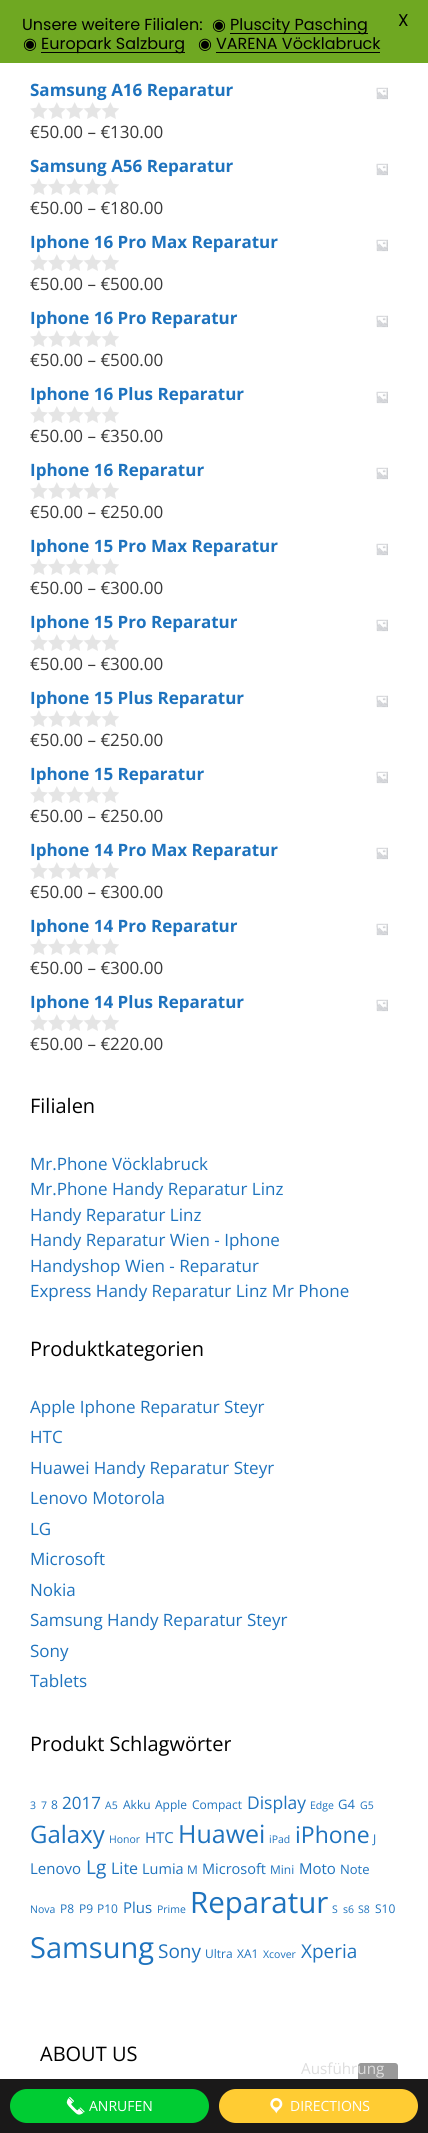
import math
import cairo



def rounded_rect(context, x, y, w, h, r):
    context.new_sub_path()
    for i, (u, v) in enumerate([(x + w - r, y + h - r), (x + r, y + h - r), (x + r, y + r), (x + w - r, y + r)]):
        context.arc(u, v, r, i * math.pi / 2, (i + 1) * math.pi / 2)
    context.close_path()


def draw_image(context, path, x, y, w, h):
    context.save()
    context.set_source_surface(cairo.ImageSurface.create_from_png(path), x, y)
    context.rectangle(x, y, w, h)
    context.fill()
    context.restore()


def draw(context):
    context.set_source_rgb(1, 1, 1)
    context.paint()
    context.set_source_rgb(111 / 255, 168 / 255, 34 / 255)
    context.rectangle(0, 0, 428, 63)
    context.fill()
    context.set_source_rgb(0, 0, 0)
    context.rectangle(230, 33, 138, 1)
    context.fill()
    context.rectangle(41, 52, 144, 1)
    context.fill()
    context.rectangle(216, 52, 164, 1)
    context.fill()
    draw_image(context, "images/1.png", 376, 87, 12, 13)
    draw_image(context, "images/2.png", 30, 102, 89, 17)
    draw_image(context, "images/1.png", 376, 163, 12, 13)
    draw_image(context, "images/2.png", 30, 178, 89, 17)
    draw_image(context, "images/1.png", 376, 239, 12, 13)
    draw_image(context, "images/2.png", 30, 254, 89, 17)
    draw_image(context, "images/1.png", 376, 315, 12, 13)
    draw_image(context, "images/2.png", 30, 330, 89, 17)
    draw_image(context, "images/1.png", 376, 391, 12, 13)
    draw_image(context, "images/2.png", 30, 406, 89, 17)
    draw_image(context, "images/1.png", 376, 467, 12, 13)
    draw_image(context, "images/2.png", 30, 482, 89, 17)
    draw_image(context, "images/1.png", 376, 543, 12, 13)
    draw_image(context, "images/2.png", 30, 558, 89, 17)
    draw_image(context, "images/1.png", 376, 619, 12, 13)
    draw_image(context, "images/2.png", 30, 634, 89, 17)
    draw_image(context, "images/1.png", 376, 695, 12, 13)
    draw_image(context, "images/2.png", 30, 710, 89, 17)
    draw_image(context, "images/1.png", 376, 771, 12, 13)
    draw_image(context, "images/2.png", 30, 786, 89, 17)
    draw_image(context, "images/1.png", 376, 847, 12, 13)
    draw_image(context, "images/2.png", 30, 862, 89, 17)
    draw_image(context, "images/1.png", 376, 923, 12, 13)
    draw_image(context, "images/2.png", 30, 938, 89, 17)
    draw_image(context, "images/1.png", 376, 999, 12, 13)
    draw_image(context, "images/2.png", 30, 1014, 89, 17)
    context.set_source_rgb(153 / 255, 153 / 255, 153 / 255)
    rounded_rect(context, 358, 2063, 40, 40, 3)
    context.fill()
    context.set_source_rgb(26 / 255, 25 / 255, 25 / 255)
    context.rectangle(0, 2079, 428, 54)
    context.fill()
    context.set_source_rgb(0, 204 / 255, 51 / 255)
    rounded_rect(context, 10, 2089, 199, 34, 17)
    context.fill()
    draw_image(context, "images/3.png", 66, 2096, 19, 19)
    context.set_source_rgb(1, 204 / 255, 51 / 255)
    rounded_rect(context, 219, 2089, 199, 34, 17)
    context.fill()
    draw_image(context, "images/4.png", 270, 2098, 13, 16)
    context.select_font_face("Poppins")
    context.set_font_size(16)
    context.set_source_rgb(0, 0, 0)
    context.move_to(22, 30)
    context.show_text("Unsere weitere Filialen:")
    context.select_font_face("DejaVu Sans")
    context.move_to(212, 30)
    context.show_text("◉")
    context.select_font_face("Poppins")
    context.move_to(230, 30)
    context.show_text("Pluscity Pasching")
    context.select_font_face("DejaVu Sans")
    context.move_to(23, 49)
    context.show_text("◉")
    context.select_font_face("Poppins")
    context.move_to(41, 49)
    context.show_text("Europark Salzburg")
    context.select_font_face("DejaVu Sans")
    context.move_to(198, 49)
    context.show_text("◉")
    context.select_font_face("Poppins")
    context.move_to(216, 49)
    context.show_text("VARENA Vöcklabruck")
    context.set_font_size(17)
    context.move_to(398, 26)
    context.show_text("X")
    context.select_font_face("Open Sans", cairo.FontSlant.NORMAL, cairo.FontWeight.BOLD)
    context.set_source_rgb(30 / 255, 115 / 255, 190 / 255)
    context.move_to(30, 96)
    context.show_text("Samsung A16 Reparatur")
    context.select_font_face("Open Sans")
    context.set_source_rgb(58 / 255, 58 / 255, 58 / 255)
    context.move_to(30, 138)
    context.show_text("€50.00 – €130.00")
    context.select_font_face("Open Sans", cairo.FontSlant.NORMAL, cairo.FontWeight.BOLD)
    context.set_source_rgb(30 / 255, 115 / 255, 190 / 255)
    context.move_to(30, 172)
    context.show_text("Samsung A56 Reparatur")
    context.select_font_face("Open Sans")
    context.set_source_rgb(58 / 255, 58 / 255, 58 / 255)
    context.move_to(30, 214)
    context.show_text("€50.00 – €180.00")
    context.select_font_face("Open Sans", cairo.FontSlant.NORMAL, cairo.FontWeight.BOLD)
    context.set_source_rgb(30 / 255, 115 / 255, 190 / 255)
    context.move_to(30, 248)
    context.show_text("Iphone 16 Pro Max Reparatur")
    context.select_font_face("Open Sans")
    context.set_source_rgb(58 / 255, 58 / 255, 58 / 255)
    context.move_to(30, 290)
    context.show_text("€50.00 – €500.00")
    context.select_font_face("Open Sans", cairo.FontSlant.NORMAL, cairo.FontWeight.BOLD)
    context.set_source_rgb(30 / 255, 115 / 255, 190 / 255)
    context.move_to(30, 324)
    context.show_text("Iphone 16 Pro Reparatur")
    context.select_font_face("Open Sans")
    context.set_source_rgb(58 / 255, 58 / 255, 58 / 255)
    context.move_to(30, 366)
    context.show_text("€50.00 – €500.00")
    context.select_font_face("Open Sans", cairo.FontSlant.NORMAL, cairo.FontWeight.BOLD)
    context.set_source_rgb(30 / 255, 115 / 255, 190 / 255)
    context.move_to(30, 400)
    context.show_text("Iphone 16 Plus Reparatur")
    context.select_font_face("Open Sans")
    context.set_source_rgb(58 / 255, 58 / 255, 58 / 255)
    context.move_to(30, 442)
    context.show_text("€50.00 – €350.00")
    context.select_font_face("Open Sans", cairo.FontSlant.NORMAL, cairo.FontWeight.BOLD)
    context.set_source_rgb(30 / 255, 115 / 255, 190 / 255)
    context.move_to(30, 476)
    context.show_text("Iphone 16 Reparatur")
    context.select_font_face("Open Sans")
    context.set_source_rgb(58 / 255, 58 / 255, 58 / 255)
    context.move_to(30, 518)
    context.show_text("€50.00 – €250.00")
    context.select_font_face("Open Sans", cairo.FontSlant.NORMAL, cairo.FontWeight.BOLD)
    context.set_source_rgb(30 / 255, 115 / 255, 190 / 255)
    context.move_to(30, 552)
    context.show_text("Iphone 15 Pro Max Reparatur")
    context.select_font_face("Open Sans")
    context.set_source_rgb(58 / 255, 58 / 255, 58 / 255)
    context.move_to(30, 594)
    context.show_text("€50.00 – €300.00")
    context.select_font_face("Open Sans", cairo.FontSlant.NORMAL, cairo.FontWeight.BOLD)
    context.set_source_rgb(30 / 255, 115 / 255, 190 / 255)
    context.move_to(30, 628)
    context.show_text("Iphone 15 Pro Reparatur")
    context.select_font_face("Open Sans")
    context.set_source_rgb(58 / 255, 58 / 255, 58 / 255)
    context.move_to(30, 670)
    context.show_text("€50.00 – €300.00")
    context.select_font_face("Open Sans", cairo.FontSlant.NORMAL, cairo.FontWeight.BOLD)
    context.set_source_rgb(30 / 255, 115 / 255, 190 / 255)
    context.move_to(30, 704)
    context.show_text("Iphone 15 Plus Reparatur")
    context.select_font_face("Open Sans")
    context.set_source_rgb(58 / 255, 58 / 255, 58 / 255)
    context.move_to(30, 746)
    context.show_text("€50.00 – €250.00")
    context.select_font_face("Open Sans", cairo.FontSlant.NORMAL, cairo.FontWeight.BOLD)
    context.set_source_rgb(30 / 255, 115 / 255, 190 / 255)
    context.move_to(30, 780)
    context.show_text("Iphone 15 Reparatur")
    context.select_font_face("Open Sans")
    context.set_source_rgb(58 / 255, 58 / 255, 58 / 255)
    context.move_to(30, 822)
    context.show_text("€50.00 – €250.00")
    context.select_font_face("Open Sans", cairo.FontSlant.NORMAL, cairo.FontWeight.BOLD)
    context.set_source_rgb(30 / 255, 115 / 255, 190 / 255)
    context.move_to(30, 856)
    context.show_text("Iphone 14 Pro Max Reparatur")
    context.select_font_face("Open Sans")
    context.set_source_rgb(58 / 255, 58 / 255, 58 / 255)
    context.move_to(30, 898)
    context.show_text("€50.00 – €300.00")
    context.select_font_face("Open Sans", cairo.FontSlant.NORMAL, cairo.FontWeight.BOLD)
    context.set_source_rgb(30 / 255, 115 / 255, 190 / 255)
    context.move_to(30, 932)
    context.show_text("Iphone 14 Pro Reparatur")
    context.select_font_face("Open Sans")
    context.set_source_rgb(58 / 255, 58 / 255, 58 / 255)
    context.move_to(30, 974)
    context.show_text("€50.00 – €300.00")
    context.select_font_face("Open Sans", cairo.FontSlant.NORMAL, cairo.FontWeight.BOLD)
    context.set_source_rgb(30 / 255, 115 / 255, 190 / 255)
    context.move_to(30, 1008)
    context.show_text("Iphone 14 Plus Reparatur")
    context.select_font_face("Open Sans")
    context.set_source_rgb(58 / 255, 58 / 255, 58 / 255)
    context.move_to(30, 1050)
    context.show_text("€50.00 – €220.00")
    context.set_font_size(20)
    context.set_source_rgb(0, 0, 0)
    context.move_to(30, 1113)
    context.show_text("Filialen")
    context.set_font_size(17)
    context.set_source_rgb(30 / 255, 115 / 255, 190 / 255)
    context.move_to(30, 1170)
    context.show_text("Mr.Phone Vöcklabruck")
    context.move_to(30, 1195)
    context.show_text("Mr.Phone Handy Reparatur Linz")
    context.move_to(30, 1221)
    context.show_text("Handy Reparatur Linz")
    context.move_to(30, 1246)
    context.show_text("Handy Reparatur Wien - Iphone")
    context.move_to(30, 1272)
    context.show_text("Handyshop Wien - Reparatur")
    context.move_to(30, 1297)
    context.show_text("Express Handy Reparatur Linz Mr Phone")
    context.set_font_size(20)
    context.set_source_rgb(0, 0, 0)
    context.move_to(30, 1356)
    context.show_text("Produktkategorien")
    context.set_font_size(17)
    context.set_source_rgb(30 / 255, 115 / 255, 190 / 255)
    context.move_to(30, 1413)
    context.show_text("Apple Iphone Reparatur Steyr")
    context.move_to(30, 1443)
    context.show_text("HTC")
    context.move_to(30, 1474)
    context.show_text("Huawei Handy Reparatur Steyr")
    context.move_to(30, 1504)
    context.show_text("Lenovo Motorola")
    context.move_to(30, 1535)
    context.show_text("LG")
    context.move_to(30, 1565)
    context.show_text("Microsoft")
    context.move_to(30, 1596)
    context.show_text("Nokia")
    context.move_to(30, 1626)
    context.show_text("Samsung Handy Reparatur Steyr")
    context.move_to(30, 1657)
    context.show_text("Sony")
    context.move_to(30, 1687)
    context.show_text("Tablets")
    context.set_font_size(20)
    context.set_source_rgb(0, 0, 0)
    context.move_to(30, 1751)
    context.show_text("Produkt Schlagwörter")
    context.set_font_size(10.5)
    context.set_source_rgb(30 / 255, 115 / 255, 190 / 255)
    context.move_to(30, 1809)
    context.show_text("3")
    context.move_to(41, 1809)
    context.show_text("7")
    context.set_font_size(12)
    context.move_to(51, 1809)
    context.show_text("8")
    context.set_font_size(17)
    context.move_to(62, 1809)
    context.show_text("2017")
    context.set_font_size(10.5)
    context.move_to(105, 1809)
    context.show_text("A5")
    context.set_font_size(12)
    context.move_to(123, 1809)
    context.show_text("Akku")
    context.move_to(155, 1809)
    context.show_text("Apple")
    context.move_to(192, 1809)
    context.show_text("Compact")
    context.set_font_size(17.5)
    context.move_to(247, 1809)
    context.show_text("Display")
    context.set_font_size(10.5)
    context.move_to(310, 1809)
    context.show_text("Edge")
    context.set_font_size(13)
    context.move_to(338, 1809)
    context.show_text("G4")
    context.set_font_size(10.5)
    context.move_to(360, 1809)
    context.show_text("G5")
    context.set_font_size(24)
    context.move_to(30, 1843)
    context.show_text("Galaxy")
    context.set_font_size(10.5)
    context.move_to(109, 1843)
    context.show_text("Honor")
    context.set_font_size(15)
    context.move_to(145, 1843)
    context.show_text("HTC")
    context.set_font_size(25)
    context.move_to(178, 1843)
    context.show_text("Huawei")
    context.set_font_size(10.5)
    context.move_to(269, 1843)
    context.show_text("iPad")
    context.set_font_size(23)
    context.move_to(295, 1843)
    context.show_text("iPhone")
    context.set_font_size(12)
    context.move_to(373, 1843)
    context.show_text("J")
    context.set_font_size(15)
    context.move_to(30, 1874)
    context.show_text("Lenovo")
    context.set_font_size(19)
    context.move_to(86, 1874)
    context.show_text("Lg")
    context.set_font_size(16)
    context.move_to(111, 1874)
    context.show_text("Lite")
    context.set_font_size(14.5)
    context.move_to(142, 1874)
    context.show_text("Lumia")
    context.set_font_size(12)
    context.move_to(187, 1874)
    context.show_text("M")
    context.set_font_size(14.5)
    context.move_to(202, 1874)
    context.show_text("Microsoft")
    context.set_font_size(12)
    context.move_to(270, 1874)
    context.show_text("Mini")
    context.set_font_size(15)
    context.move_to(299, 1874)
    context.show_text("Moto")
    context.set_font_size(13)
    context.move_to(340, 1874)
    context.show_text("Note")
    context.set_font_size(10.5)
    context.move_to(30, 1913)
    context.show_text("Nova")
    context.set_font_size(12)
    context.move_to(60, 1913)
    context.show_text("P8")
    context.move_to(79, 1913)
    context.show_text("P9")
    context.move_to(97, 1913)
    context.show_text("P10")
    context.set_font_size(15)
    context.move_to(123, 1913)
    context.show_text("Plus")
    context.set_font_size(10.5)
    context.move_to(157, 1913)
    context.show_text("Prime")
    context.set_font_size(29.5)
    context.move_to(190, 1913)
    context.show_text("Reparatur")
    context.set_font_size(10.5)
    context.move_to(332, 1913)
    context.show_text("S")
    context.move_to(343, 1913)
    context.show_text("s6")
    context.move_to(358, 1913)
    context.show_text("S8")
    context.set_font_size(12)
    context.move_to(375, 1913)
    context.show_text("S10")
    context.set_font_size(29)
    context.move_to(30, 1958)
    context.show_text("Samsung")
    context.set_font_size(19)
    context.move_to(158, 1958)
    context.show_text("Sony")
    context.set_font_size(12)
    context.move_to(205, 1958)
    context.show_text("Ultra")
    context.move_to(237, 1958)
    context.show_text("XA1")
    context.set_font_size(10.5)
    context.move_to(263, 1958)
    context.show_text("Xcover")
    context.set_font_size(19)
    context.move_to(301, 1958)
    context.show_text("Xperia")
    context.set_font_size(20)
    context.set_source_rgb(0, 0, 0)
    context.move_to(40, 2061)
    context.show_text("ABOUT US")
    context.set_font_size(15.25)
    context.set_source_rgb(221 / 255, 221 / 255, 221 / 255)
    context.move_to(301, 2074)
    context.show_text("Ausführung")
    context.set_font_size(14)
    context.set_source_rgb(1, 1, 1)
    context.move_to(89, 2111)
    context.show_text("ANRUFEN")
    context.move_to(290, 2111)
    context.show_text("DIRECTIONS")


surface = cairo.ImageSurface(cairo.Format.RGB24, 428, 2133)
context = cairo.Context(surface)
options = cairo.FontOptions()
options.set_hint_metrics(cairo.HintMetrics.OFF)
options.set_hint_style(cairo.HintStyle.NONE)
context.set_font_options(options)
context.set_miter_limit(4)
draw(context)
surface.write_to_png("out.png")
